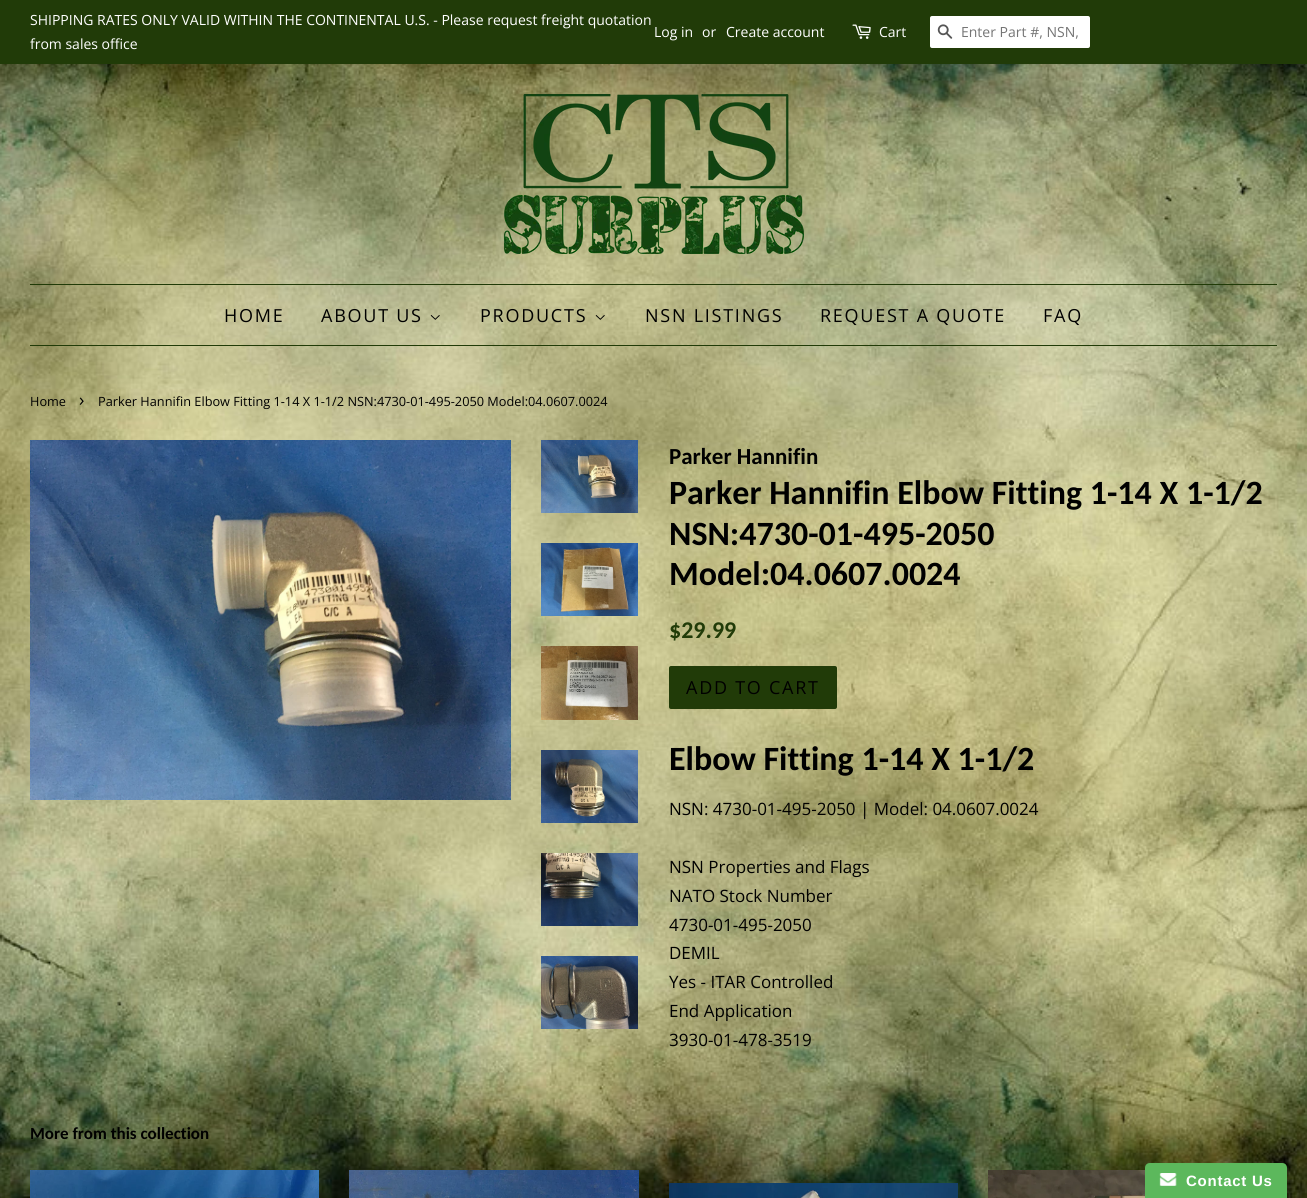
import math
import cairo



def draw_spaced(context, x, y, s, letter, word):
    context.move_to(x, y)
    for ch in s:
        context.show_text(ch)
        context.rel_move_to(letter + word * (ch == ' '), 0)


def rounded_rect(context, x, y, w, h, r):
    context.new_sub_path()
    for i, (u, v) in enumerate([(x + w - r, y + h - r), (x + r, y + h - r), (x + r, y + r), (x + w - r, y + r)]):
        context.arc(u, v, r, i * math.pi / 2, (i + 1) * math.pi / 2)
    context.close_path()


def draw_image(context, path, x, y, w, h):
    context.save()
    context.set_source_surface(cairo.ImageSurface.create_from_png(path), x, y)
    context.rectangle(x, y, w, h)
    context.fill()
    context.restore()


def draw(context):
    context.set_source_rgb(1, 1, 1)
    context.paint()
    draw_image(context, "images/1.png", 0, 64, 1307, 1134)
    context.set_source_rgb(33 / 255, 59 / 255, 8 / 255)
    context.rectangle(0, 0, 1307, 64)
    context.fill()
    draw_image(context, "images/2.png", 852, 24, 19, 15)
    context.set_source_rgb(1, 1, 1)
    rounded_rect(context, 930, 16, 160, 32, 2)
    context.fill()
    draw_image(context, "images/3.png", 937, 24, 16, 15)
    draw_image(context, "images/4.png", 504, 94, 300, 160)
    context.set_source_rgb(33 / 255, 59 / 255, 8 / 255)
    context.rectangle(30, 284, 1247, 1)
    context.fill()
    context.rectangle(30, 345, 1247, 1)
    context.fill()
    draw_image(context, "images/5.png", 430, 315, 10, 5)
    draw_image(context, "images/6.png", 595, 315, 10, 5)
    draw_image(context, "images/7.png", 30, 440, 481, 360)
    draw_image(context, "images/8.png", 541, 440, 97, 73)
    draw_image(context, "images/9.png", 541, 543, 97, 73)
    draw_image(context, "images/10.png", 541, 646, 97, 74)
    draw_image(context, "images/11.png", 541, 750, 97, 73)
    draw_image(context, "images/12.png", 541, 853, 97, 73)
    draw_image(context, "images/13.png", 541, 956, 97, 73)
    rounded_rect(context, 669, 666, 168, 43, 2)
    context.fill()
    draw_image(context, "images/14.png", 30, 1170, 289, 28)
    draw_image(context, "images/15.png", 349, 1170, 290, 28)
    draw_image(context, "images/16.png", 669, 1183, 289, 15)
    draw_image(context, "images/17.png", 988, 1170, 157, 28)
    context.set_source_rgb(92 / 255, 184 / 255, 92 / 255)
    context.new_path()
    context.move_to(1150, 1163)
    context.line_to(1282, 1163)
    context.curve_to(1285, 1163, 1287, 1165, 1287, 1168)
    context.line_to(1287, 1198)
    context.line_to(1145, 1198)
    context.line_to(1145, 1168)
    context.curve_to(1145, 1165, 1147, 1163, 1150, 1163)
    context.close_path()
    context.fill()
    draw_image(context, "images/18.png", 1159, 1173, 18, 13)
    context.select_font_face("Open Sans")
    context.set_font_size(14)
    context.set_source_rgb(1, 1, 1)
    context.move_to(30, 25)
    context.show_text("SHIPPING RATES ONLY VALID WITHIN THE CONTINENTAL U.S. - Please request freight quotation")
    context.move_to(30, 49)
    context.show_text("from sales office")
    context.move_to(654, 37)
    context.show_text("Log in")
    context.move_to(702, 37)
    context.show_text("or")
    context.move_to(726, 37)
    context.show_text("Create account")
    context.move_to(879, 37)
    context.show_text("Cart")
    context.set_source_rgb(117 / 255, 117 / 255, 117 / 255)
    context.move_to(961, 37)
    context.show_text("Enter Part #, NSN,")
    context.set_font_size(18)
    context.set_source_rgb(0, 0, 0)
    draw_spaced(context, 224, 322, "HOME", 1.75, 0)
    draw_spaced(context, 321, 322, "ABOUT US", 1.75, 0)
    draw_spaced(context, 480, 322, "PRODUCTS", 1.75, 0)
    draw_spaced(context, 645, 322, "NSN LISTINGS", 1.75, 0)
    draw_spaced(context, 820, 322, "REQUEST A QUOTE", 1.75, 0)
    draw_spaced(context, 1043, 322, "FAQ", 1.75, 0)
    context.set_font_size(12.75)
    context.move_to(30, 406)
    context.show_text("Home")
    context.set_font_size(18)
    context.move_to(79, 406)
    context.show_text("›")
    context.set_font_size(12.75)
    context.move_to(98, 406)
    context.show_text("Parker Hannifin Elbow Fitting 1-14 X 1-1/2 NSN:4730-01-495-2050 Model:04.0607.0024")
    context.select_font_face("Carlito", cairo.FontSlant.NORMAL, cairo.FontWeight.BOLD)
    context.set_font_size(23)
    context.move_to(669, 464)
    context.show_text("Parker Hannifin")
    context.set_font_size(34)
    context.move_to(669, 504)
    context.show_text("Parker Hannifin Elbow Fitting 1-14 X 1-1/2")
    context.move_to(669, 545)
    context.show_text("NSN:4730-01-495-2050")
    context.move_to(669, 585)
    context.show_text("Model:04.0607.0024")
    context.set_font_size(24)
    context.set_source_rgb(33 / 255, 59 / 255, 8 / 255)
    context.move_to(669, 638)
    context.show_text("$29.99")
    context.select_font_face("Open Sans")
    context.set_font_size(18)
    context.set_source_rgb(0, 0, 0)
    draw_spaced(context, 686, 694, "ADD TO CART", 1.75, 0)
    context.select_font_face("Carlito", cairo.FontSlant.NORMAL, cairo.FontWeight.BOLD)
    context.set_font_size(34)
    context.move_to(669, 770)
    context.show_text("Elbow Fitting 1-14 X 1-1/2")
    context.select_font_face("Open Sans")
    context.set_font_size(17)
    context.move_to(669, 815)
    context.show_text("NSN: 4730-01-495-2050 | Model: 04.0607.0024")
    context.move_to(669, 873)
    context.show_text("NSN Properties and Flags")
    context.move_to(669, 902)
    context.show_text("NATO Stock Number")
    context.move_to(669, 931)
    context.show_text("4730-01-495-2050")
    context.move_to(669, 959)
    context.show_text("DEMIL")
    context.move_to(669, 988)
    context.show_text("Yes - ITAR Controlled")
    context.move_to(669, 1017)
    context.show_text("End Application")
    context.move_to(669, 1046)
    context.show_text("3930-01-478-3519")
    context.select_font_face("Carlito", cairo.FontSlant.NORMAL, cairo.FontWeight.BOLD)
    context.move_to(30, 1139)
    context.show_text("More from this collection")
    context.select_font_face("Liberation Sans", cairo.FontSlant.NORMAL, cairo.FontWeight.BOLD)
    context.set_font_size(15)
    context.set_source_rgb(1, 1, 1)
    draw_spaced(context, 1186, 1186, "Contact Us", 0.75, 0)


surface = cairo.ImageSurface(cairo.Format.RGB24, 1307, 1198)
context = cairo.Context(surface)
options = cairo.FontOptions()
options.set_hint_metrics(cairo.HintMetrics.OFF)
options.set_hint_style(cairo.HintStyle.NONE)
context.set_font_options(options)
context.set_miter_limit(4)
draw(context)
surface.write_to_png("out.png")
